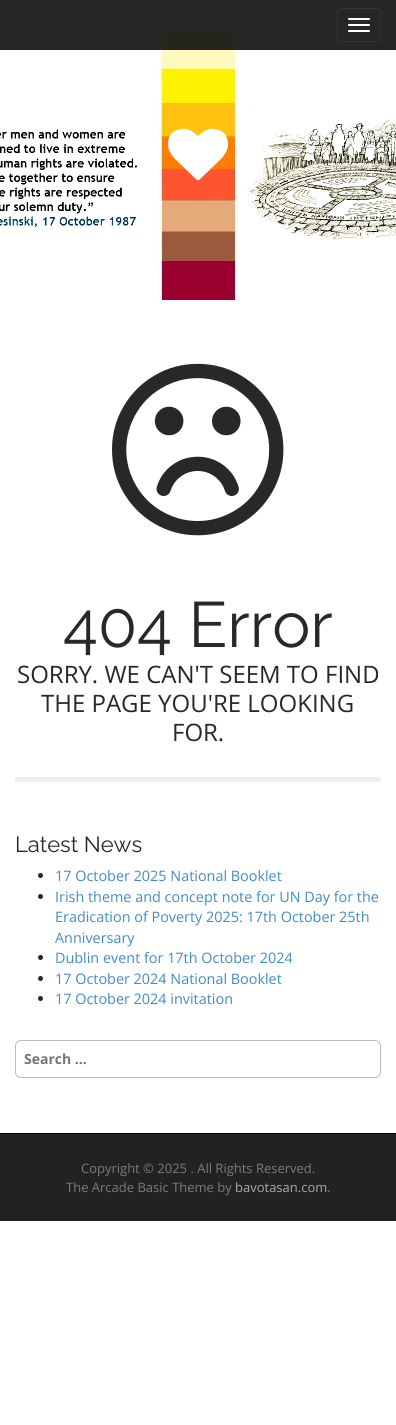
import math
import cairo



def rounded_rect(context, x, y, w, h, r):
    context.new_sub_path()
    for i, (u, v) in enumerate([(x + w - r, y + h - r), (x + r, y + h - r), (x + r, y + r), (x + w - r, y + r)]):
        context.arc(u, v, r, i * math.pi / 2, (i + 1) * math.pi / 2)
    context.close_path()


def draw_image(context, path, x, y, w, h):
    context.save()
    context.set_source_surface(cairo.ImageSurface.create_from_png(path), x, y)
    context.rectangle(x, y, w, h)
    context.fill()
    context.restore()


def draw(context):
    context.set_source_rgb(1, 1, 1)
    context.paint()
    draw_image(context, "images/1.png", 0, 25, 396, 275)
    context.set_source_rgba(0, 0, 0, 0.85)
    context.rectangle(0, 0, 396, 50)
    context.fill()
    rounded_rect(context, 337.5, 8.5, 43, 33, 3.5)
    context.set_source_rgb(51 / 255, 51 / 255, 51 / 255)
    context.set_line_width(1)
    context.stroke()
    context.set_source_rgb(1, 1, 1)
    rounded_rect(context, 348, 18, 22, 2, 1)
    context.fill()
    rounded_rect(context, 348, 24, 22, 2, 1)
    context.fill()
    rounded_rect(context, 348, 30, 22, 2, 1)
    context.fill()
    draw_image(context, "images/2.png", 168, 128, 60, 53)
    context.set_source_rgb(238 / 255, 238 / 255, 238 / 255)
    context.rectangle(15, 777, 366, 5)
    context.fill()
    draw_image(context, "images/3.png", 112, 363, 172, 173)
    context.set_source_rgb(40 / 255, 40 / 255, 40 / 255)
    context.arc(40.5, 875.5, 2.5, 0, 2 * math.pi)
    context.fill()
    context.arc(40.5, 896.5, 2.5, 0, 2 * math.pi)
    context.fill()
    context.arc(40.5, 957.5, 2.5, 0, 2 * math.pi)
    context.fill()
    context.arc(40.5, 978.5, 2.5, 0, 2 * math.pi)
    context.fill()
    context.arc(40.5, 998.5, 2.5, 0, 2 * math.pi)
    context.fill()
    rounded_rect(context, 15.5, 1040.5, 365, 37, 5.5)
    context.set_source_rgb(187 / 255, 187 / 255, 187 / 255)
    context.stroke()
    context.set_source_rgb(34 / 255, 34 / 255, 34 / 255)
    context.rectangle(0, 1134, 396, 87)
    context.fill()
    context.set_source_rgb(0, 0, 0)
    context.rectangle(0, 1133, 396, 1)
    context.fill()
    context.select_font_face("Raleway Thin")
    context.set_font_size(64)
    context.set_source_rgb(40 / 255, 40 / 255, 40 / 255)
    context.move_to(63, 647)
    context.show_text("404 Error")
    context.select_font_face("Open Sans")
    context.set_font_size(24)
    context.move_to(17, 683)
    context.show_text("SORRY. WE CAN'T SEEM TO FIND")
    context.move_to(41, 712)
    context.show_text("THE PAGE YOU'RE LOOKING")
    context.move_to(172, 741)
    context.show_text("FOR.")
    context.select_font_face("Raleway Thin")
    context.set_font_size(22)
    context.move_to(15, 852)
    context.show_text("Latest News")
    context.select_font_face("Open Sans")
    context.set_font_size(14.4)
    context.set_source_rgb(66 / 255, 139 / 255, 202 / 255)
    context.move_to(55, 881)
    context.show_text("17 October 2025 National Booklet")
    context.move_to(55, 902)
    context.show_text("Irish theme and concept note for UN Day for the")
    context.move_to(55, 922)
    context.show_text("Eradication of Poverty 2025: 17th October 25th")
    context.move_to(55, 943)
    context.show_text("Anniversary")
    context.move_to(55, 963)
    context.show_text("Dublin event for 17th October 2024")
    context.move_to(55, 984)
    context.show_text("17 October 2024 National Booklet")
    context.move_to(55, 1004)
    context.show_text("17 October 2024 invitation")
    context.select_font_face("Open Sans", cairo.FontSlant.NORMAL, cairo.FontWeight.BOLD)
    context.set_font_size(14)
    context.set_source_rgb(117 / 255, 117 / 255, 117 / 255)
    context.move_to(24, 1064)
    context.show_text("Search …")
    context.select_font_face("Open Sans")
    context.set_font_size(13)
    context.set_source_rgb(123 / 255, 123 / 255, 123 / 255)
    context.move_to(81, 1173)
    context.show_text("Copyright © 2025 . All Rights Reserved.")
    context.move_to(66, 1192)
    context.show_text("The Arcade Basic Theme by")
    context.set_source_rgb(170 / 255, 170 / 255, 170 / 255)
    context.move_to(235, 1192)
    context.show_text("bavotasan.com")
    context.set_source_rgb(123 / 255, 123 / 255, 123 / 255)
    context.move_to(327, 1192)
    context.show_text(".")


surface = cairo.ImageSurface(cairo.Format.RGB24, 396, 1425)
context = cairo.Context(surface)
options = cairo.FontOptions()
options.set_hint_metrics(cairo.HintMetrics.OFF)
options.set_hint_style(cairo.HintStyle.NONE)
context.set_font_options(options)
context.set_miter_limit(4)
draw(context)
surface.write_to_png("out.png")
